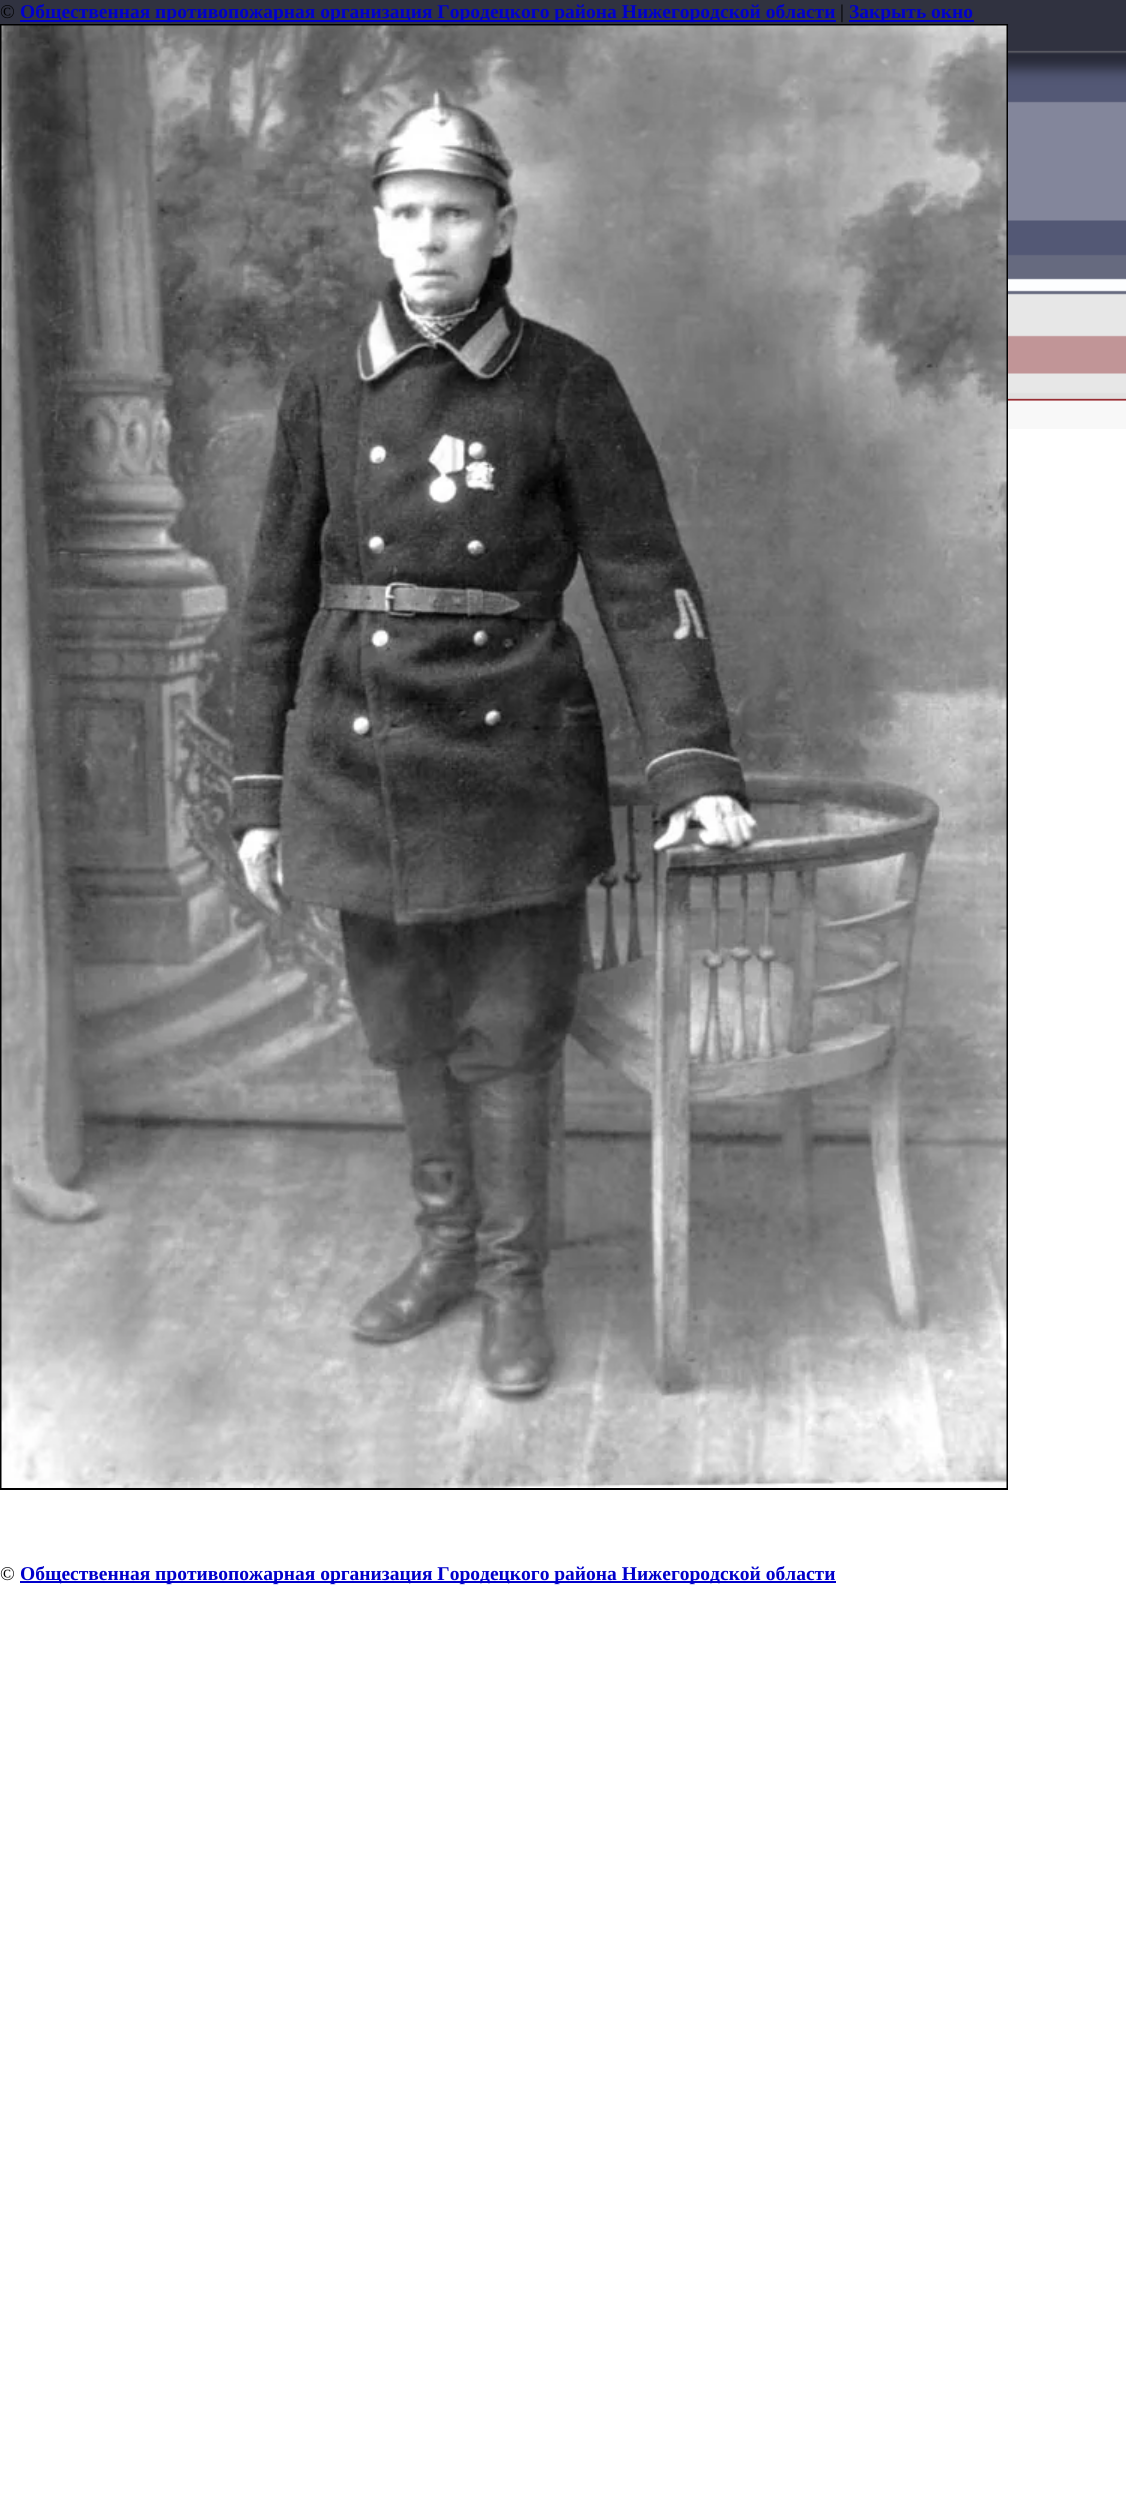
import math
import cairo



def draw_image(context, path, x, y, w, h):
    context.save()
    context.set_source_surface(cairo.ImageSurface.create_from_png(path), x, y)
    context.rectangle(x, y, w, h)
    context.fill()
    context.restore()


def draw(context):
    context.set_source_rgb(1, 1, 1)
    context.paint()
    draw_image(context, "images/1.png", 0, 0, 1126, 429)
    context.set_source_rgb(0, 0, 204 / 255)
    context.rectangle(20, 20, 816, 2)
    context.fill()
    context.rectangle(849, 20, 125, 2)
    context.fill()
    context.rectangle(1, 25, 1006, 1464)
    context.set_source_rgb(0, 0, 0)
    context.stroke()
    draw_image(context, "images/2.png", 1, 25, 1006, 1463)
    context.set_source_rgb(0, 0, 204 / 255)
    context.rectangle(20, 1581, 816, 2)
    context.fill()
    context.select_font_face("Liberation Serif")
    context.set_font_size(19.5)
    context.set_source_rgb(0, 0, 0)
    context.move_to(0, 18)
    context.show_text("©")
    context.select_font_face("Liberation Serif", cairo.FontSlant.NORMAL, cairo.FontWeight.BOLD)
    context.set_source_rgb(0, 0, 204 / 255)
    context.move_to(20, 18)
    context.show_text("Общественная противопожарная организация Городецкого района Нижегородской области")
    context.select_font_face("Liberation Serif")
    context.set_source_rgb(0, 0, 0)
    context.move_to(840, 18)
    context.show_text("|")
    context.select_font_face("Liberation Serif", cairo.FontSlant.NORMAL, cairo.FontWeight.BOLD)
    context.set_source_rgb(0, 0, 204 / 255)
    context.move_to(849, 18)
    context.show_text("Закрыть окно")
    context.select_font_face("Liberation Serif")
    context.set_source_rgb(0, 0, 0)
    context.move_to(0, 1580)
    context.show_text("©")
    context.select_font_face("Liberation Serif", cairo.FontSlant.NORMAL, cairo.FontWeight.BOLD)
    context.set_source_rgb(0, 0, 204 / 255)
    context.move_to(20, 1580)
    context.show_text("Общественная противопожарная организация Городецкого района Нижегородской области")


surface = cairo.ImageSurface(cairo.Format.RGB24, 1126, 2515)
context = cairo.Context(surface)
options = cairo.FontOptions()
options.set_hint_metrics(cairo.HintMetrics.OFF)
options.set_hint_style(cairo.HintStyle.NONE)
context.set_font_options(options)
context.set_miter_limit(4)
draw(context)
surface.write_to_png("out.png")
